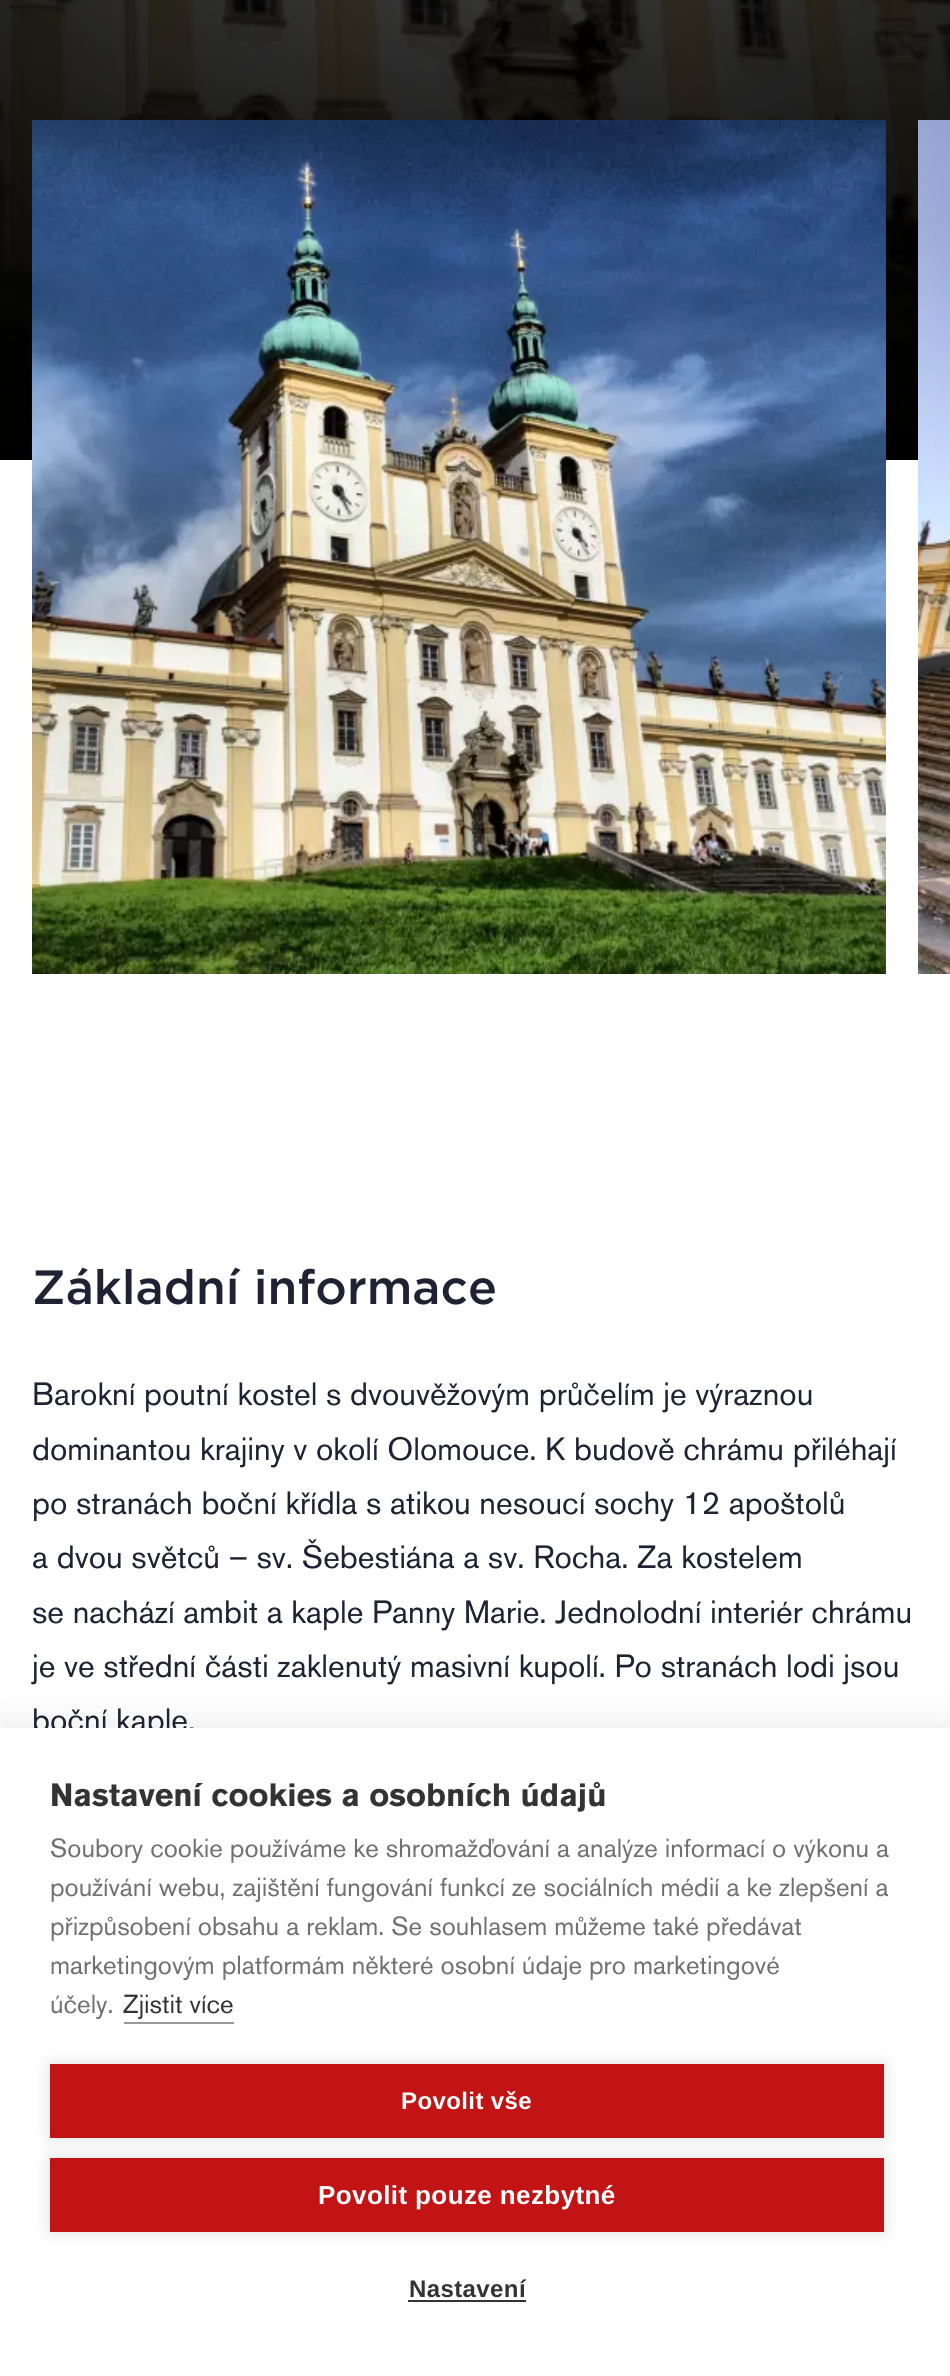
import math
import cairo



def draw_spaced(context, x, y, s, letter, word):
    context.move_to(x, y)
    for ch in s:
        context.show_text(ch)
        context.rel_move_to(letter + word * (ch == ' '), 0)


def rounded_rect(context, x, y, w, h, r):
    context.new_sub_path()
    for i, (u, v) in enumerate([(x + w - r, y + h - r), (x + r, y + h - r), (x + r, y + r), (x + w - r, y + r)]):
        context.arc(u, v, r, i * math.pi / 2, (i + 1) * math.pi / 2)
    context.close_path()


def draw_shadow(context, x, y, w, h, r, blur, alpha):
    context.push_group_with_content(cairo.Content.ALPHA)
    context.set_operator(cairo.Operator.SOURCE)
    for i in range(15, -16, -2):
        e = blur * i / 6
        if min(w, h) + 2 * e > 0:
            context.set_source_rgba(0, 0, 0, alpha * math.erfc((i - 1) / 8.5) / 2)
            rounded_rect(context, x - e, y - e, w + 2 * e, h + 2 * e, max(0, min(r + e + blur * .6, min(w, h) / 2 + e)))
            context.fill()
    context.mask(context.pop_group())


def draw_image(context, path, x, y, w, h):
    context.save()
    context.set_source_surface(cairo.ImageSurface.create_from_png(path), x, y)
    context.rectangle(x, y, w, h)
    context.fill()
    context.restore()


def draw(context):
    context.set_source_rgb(1, 1, 1)
    context.paint()
    draw_image(context, "images/1.png", 0, 0, 950, 460)
    draw_image(context, "images/2.png", 32, 120, 854, 854)
    draw_image(context, "images/3.png", 918, 120, 32, 854)
    context.set_source_rgb(0, 0, 0)
    draw_shadow(context, 0, 1728, 950, 648, 0, 20, 0.1)
    context.select_font_face("Gotham Medium")
    context.set_font_size(48)
    context.set_source_rgb(30 / 255, 34 / 255, 51 / 255)
    context.move_to(32, 1304)
    context.show_text("Základní informace")
    context.select_font_face("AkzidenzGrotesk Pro")
    context.set_font_size(32)
    context.move_to(32, 1405)
    context.show_text("Barokní poutní kostel s dvouvěžovým průčelím je výraznou")
    context.move_to(32, 1460)
    context.show_text("dominantou krajiny v okolí Olomouce. K budově chrámu přiléhají")
    context.move_to(32, 1514)
    context.show_text("po stranách boční křídla s atikou nesoucí sochy 12 apoštolů")
    context.move_to(32, 1568)
    context.show_text("a dvou světců – sv. Šebestiána a sv. Rocha. Za kostelem")
    context.move_to(32, 1623)
    context.show_text("se nachází ambit a kaple Panny Marie. Jednolodní interiér chrámu")
    context.move_to(32, 1677)
    context.show_text("je ve střední části zaklenutý masivní kupolí. Po stranách lodi jsou")
    context.move_to(32, 1731)
    context.show_text("boční kaple.")
    context.set_source_rgb(1, 1, 1)
    context.rectangle(0, 1728, 950, 648)
    context.fill()
    context.select_font_face("AkzidenzGrotesk Pro", cairo.FontSlant.NORMAL, cairo.FontWeight.BOLD)
    context.set_source_rgb(51 / 255, 51 / 255, 51 / 255)
    context.move_to(50, 1806)
    context.show_text("Nastavení cookies a osobních údajů")
    context.select_font_face("AkzidenzGrotesk Pro")
    context.set_font_size(26)
    context.set_source_rgb(112 / 255, 112 / 255, 112 / 255)
    context.move_to(50, 1857)
    context.show_text("Soubory cookie používáme ke shromažďování a analýze informací o výkonu a")
    context.move_to(50, 1896)
    context.show_text("používání webu, zajištění fungování funkcí ze sociálních médií a ke zlepšení a")
    context.move_to(50, 1935)
    context.show_text("přizpůsobení obsahu a reklam. Se souhlasem můžeme také předávat")
    context.move_to(50, 1974)
    context.show_text("marketingovým platformám některé osobní údaje pro marketingové")
    context.move_to(50, 2013)
    context.show_text("účely.")
    context.set_source_rgb(51 / 255, 51 / 255, 51 / 255)
    context.move_to(123, 2013)
    context.show_text("Zjistit více")
    context.set_source_rgb(153 / 255, 153 / 255, 153 / 255)
    context.rectangle(124, 2022, 110, 2)
    context.fill()
    context.set_source_rgb(0, 0, 0)
    draw_shadow(context, 50, 2064, 834, 74, 0, 10, 0.12)
    context.set_source_rgb(194 / 255, 20 / 255, 21 / 255)
    context.rectangle(50, 2064, 834, 74)
    context.fill()
    context.select_font_face("Liberation Sans", cairo.FontSlant.NORMAL, cairo.FontWeight.BOLD)
    context.set_font_size(24)
    context.set_source_rgb(1, 1, 1)
    draw_spaced(context, 401, 2109, "Povolit vše", 0.4, 0)
    context.set_source_rgb(0, 0, 0)
    draw_shadow(context, 50, 2158, 834, 74, 0, 10, 0.12)
    context.set_source_rgb(194 / 255, 20 / 255, 21 / 255)
    context.rectangle(50, 2158, 834, 74)
    context.fill()
    context.set_font_size(26)
    context.set_source_rgb(1, 1, 1)
    draw_spaced(context, 318, 2204, "Povolit pouze nezbytné", 0.4, 0)
    context.set_font_size(24)
    context.set_source_rgb(51 / 255, 51 / 255, 51 / 255)
    draw_spaced(context, 409, 2297, "Nastavení", 0.4, 0)
    context.rectangle(408, 2300, 118, 2)
    context.fill()


surface = cairo.ImageSurface(cairo.Format.RGB24, 950, 2376)
context = cairo.Context(surface)
options = cairo.FontOptions()
options.set_hint_metrics(cairo.HintMetrics.OFF)
options.set_hint_style(cairo.HintStyle.NONE)
context.set_font_options(options)
context.set_miter_limit(4)
draw(context)
surface.write_to_png("out.png")
